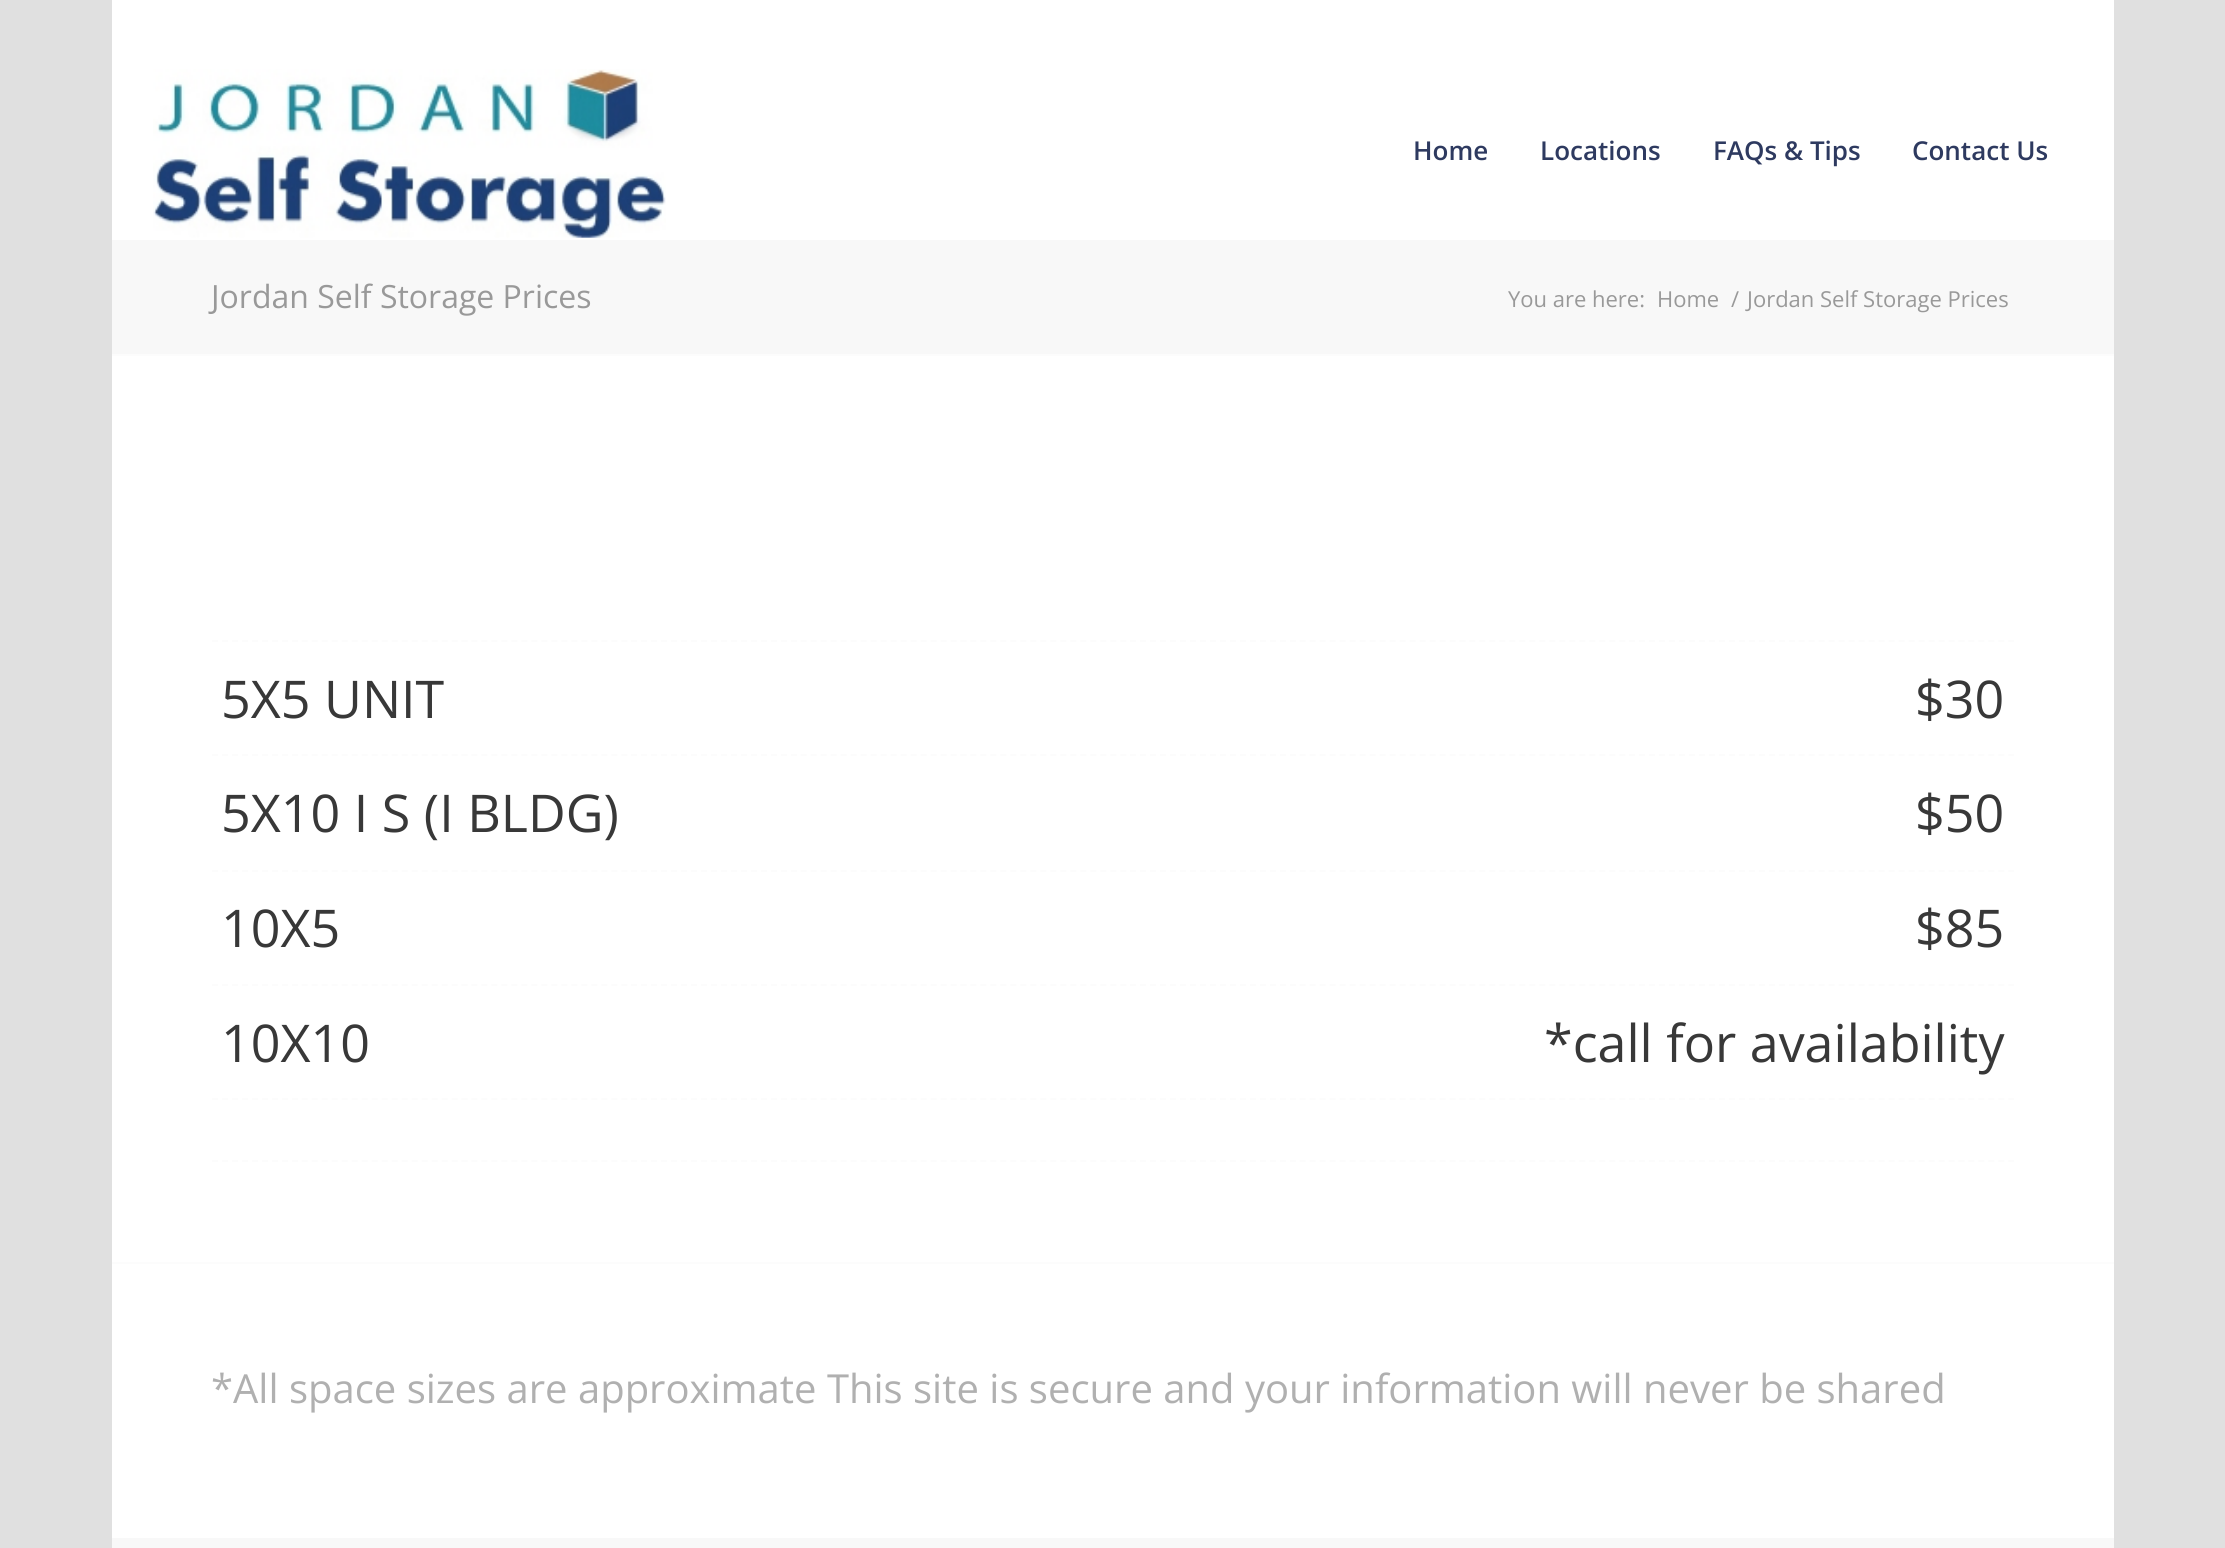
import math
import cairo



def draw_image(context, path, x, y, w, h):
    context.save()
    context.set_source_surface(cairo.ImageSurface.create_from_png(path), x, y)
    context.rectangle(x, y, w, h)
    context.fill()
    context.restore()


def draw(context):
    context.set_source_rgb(224 / 255, 224 / 255, 224 / 255)
    context.paint()
    context.set_source_rgb(1, 1, 1)
    context.rectangle(112, 0, 2002, 240)
    context.fill()
    draw_image(context, "images/1.png", 153, 69, 513, 169)
    context.rectangle(112, 356, 2002, 1182)
    context.fill()
    context.set_source_rgb(248 / 255, 248 / 255, 248 / 255)
    context.rectangle(112, 240, 2002, 114)
    context.fill()
    context.set_source_rgb(252 / 255, 252 / 255, 252 / 255)
    context.rectangle(112, 354, 2002, 2)
    context.fill()
    context.new_path()
    context.move_to(212, 641)
    context.line_to(2014, 641)
    context.set_dash([6, 3.98])
    context.stroke()
    context.new_path()
    context.move_to(212, 755)
    context.line_to(2014, 755)
    context.stroke()
    context.new_path()
    context.move_to(212, 871)
    context.line_to(2014, 871)
    context.stroke()
    context.new_path()
    context.move_to(212, 985)
    context.line_to(2014, 985)
    context.stroke()
    context.new_path()
    context.move_to(212, 1099)
    context.line_to(2014, 1099)
    context.stroke()
    context.new_path()
    context.move_to(212, 1161)
    context.line_to(2014, 1161)
    context.stroke()
    context.rectangle(112, 1262, 2002, 2)
    context.fill()
    context.set_source_rgb(248 / 255, 248 / 255, 248 / 255)
    context.rectangle(112, 1538, 2002, 10)
    context.fill()
    context.select_font_face("Open Sans SemiBold")
    context.set_font_size(26)
    context.set_source_rgb(46 / 255, 58 / 255, 96 / 255)
    context.move_to(1413, 160)
    context.show_text("Home")
    context.move_to(1540, 160)
    context.show_text("Locations")
    context.move_to(1713, 160)
    context.show_text("FAQs & Tips")
    context.move_to(1912, 160)
    context.show_text("Contact Us")
    context.select_font_face("Open Sans")
    context.set_font_size(32)
    context.set_source_rgb(153 / 255, 153 / 255, 153 / 255)
    context.move_to(211, 308)
    context.show_text("Jordan Self Storage Prices")
    context.set_font_size(22)
    context.move_to(1508, 307)
    context.show_text("You are here:")
    context.move_to(1657, 307)
    context.show_text("Home")
    context.move_to(1731, 307)
    context.show_text("/")
    context.move_to(1747, 307)
    context.show_text("Jordan Self Storage Prices")
    context.set_font_size(52)
    context.set_source_rgb(56 / 255, 56 / 255, 56 / 255)
    context.move_to(221, 718)
    context.show_text("5X5 UNIT")
    context.move_to(1915, 718)
    context.show_text("$30")
    context.move_to(221, 832)
    context.show_text("5X10 I S (I BLDG)")
    context.move_to(1915, 832)
    context.show_text("$50")
    context.move_to(221, 947)
    context.show_text("10X5")
    context.move_to(1915, 947)
    context.show_text("$85")
    context.move_to(221, 1062)
    context.show_text("10X10")
    context.move_to(1544, 1062)
    context.show_text("*call for availability")
    context.set_font_size(40)
    context.set_source_rgb(176 / 255, 176 / 255, 176 / 255)
    context.move_to(211, 1403)
    context.show_text("*All space sizes are approximate This site is secure and your information will never be shared")


surface = cairo.ImageSurface(cairo.Format.RGB24, 2225, 1548)
context = cairo.Context(surface)
options = cairo.FontOptions()
options.set_hint_metrics(cairo.HintMetrics.OFF)
options.set_hint_style(cairo.HintStyle.NONE)
context.set_font_options(options)
context.set_miter_limit(4)
draw(context)
surface.write_to_png("out.png")
